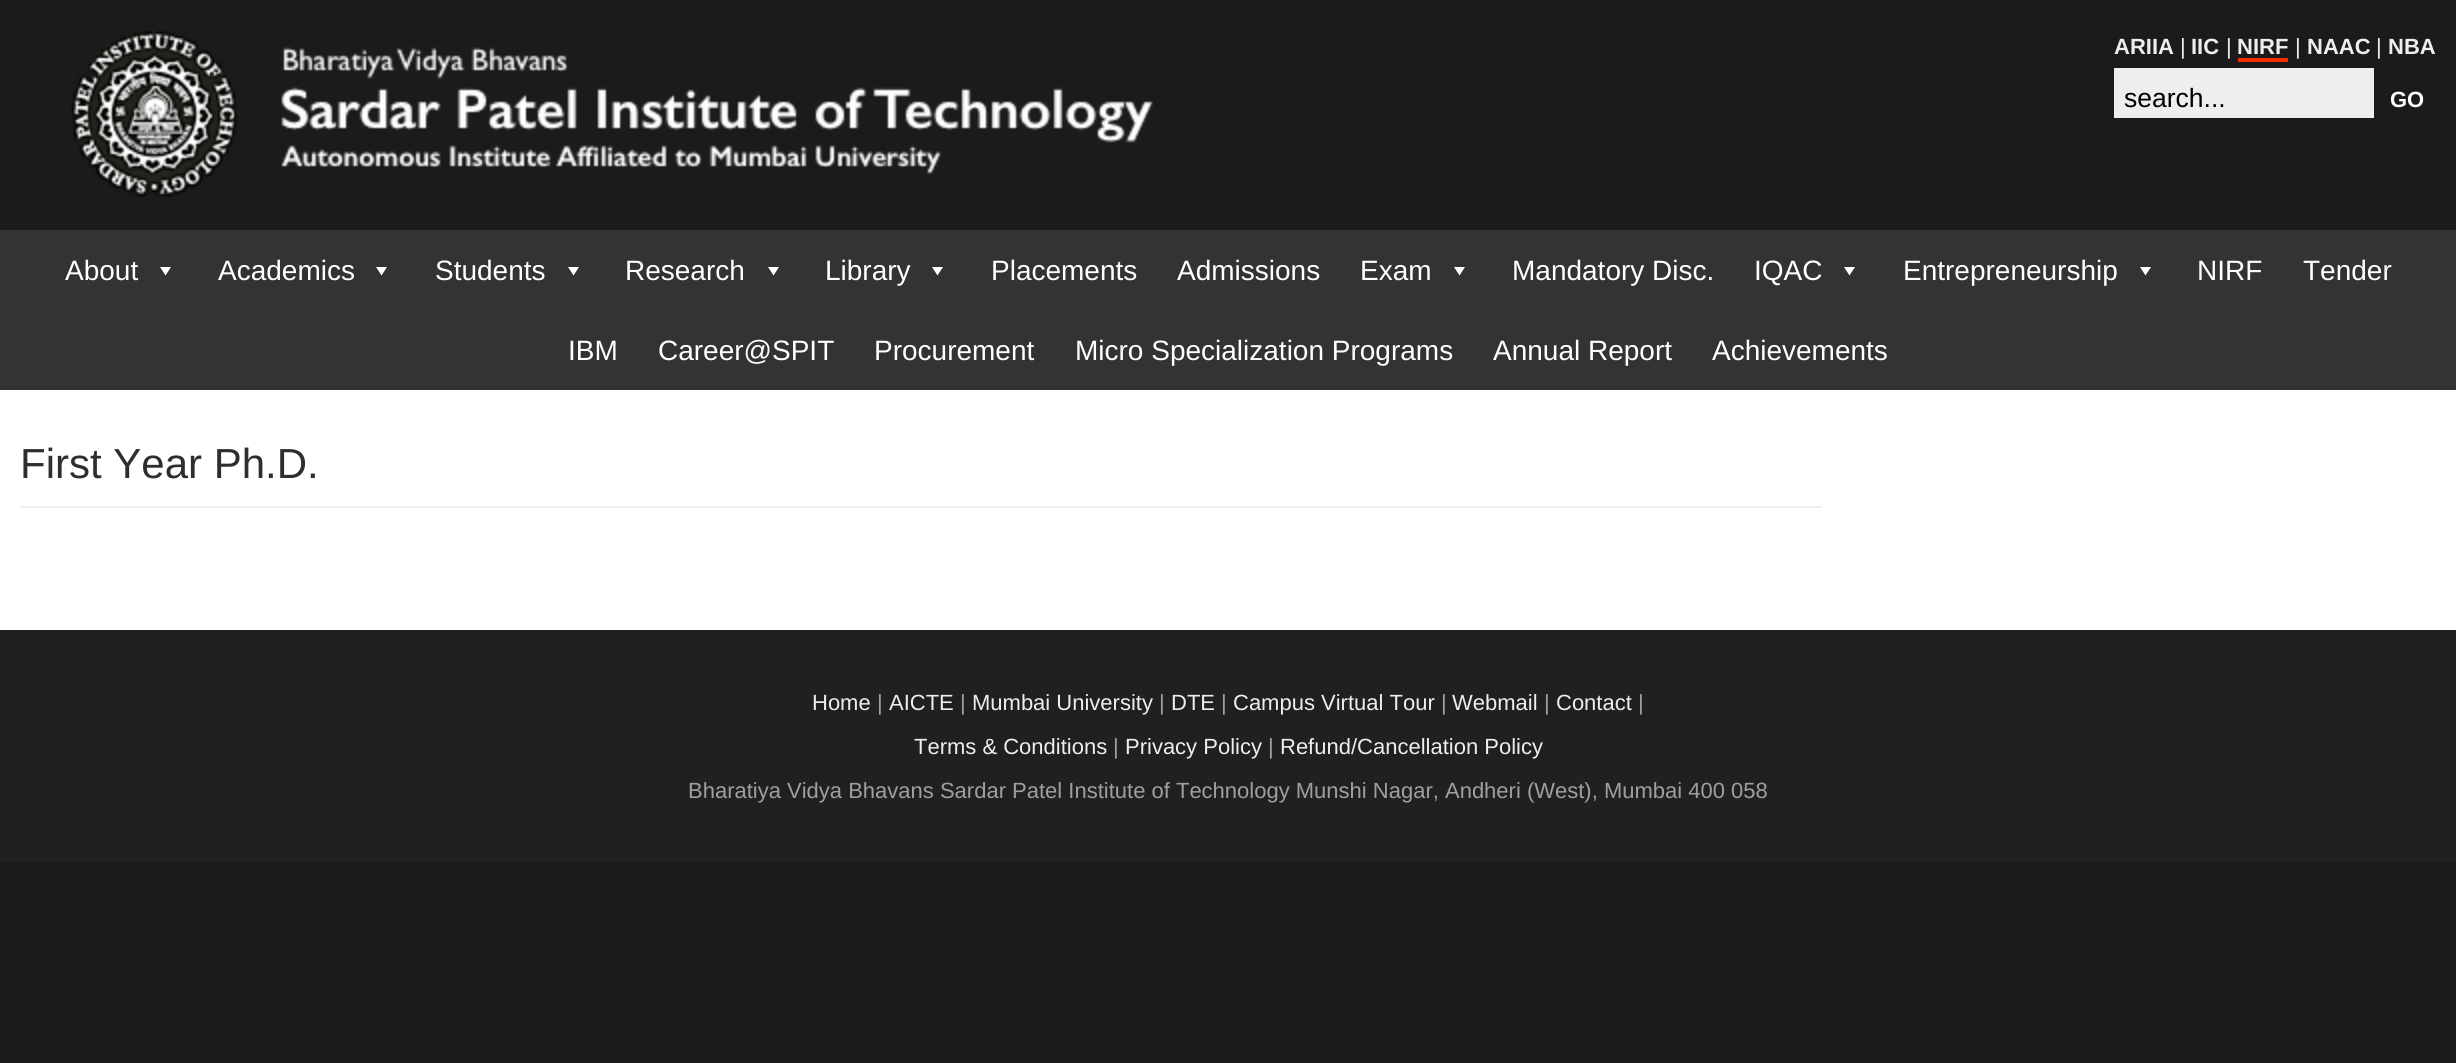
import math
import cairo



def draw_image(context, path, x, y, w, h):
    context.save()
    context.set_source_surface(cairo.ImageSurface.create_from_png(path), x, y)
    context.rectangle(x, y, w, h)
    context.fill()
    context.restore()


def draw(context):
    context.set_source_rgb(27 / 255, 27 / 255, 27 / 255)
    context.paint()
    draw_image(context, "images/1.png", 70, 30, 168, 167)
    draw_image(context, "images/2.png", 281, 47, 872, 128)
    context.set_source_rgb(242 / 255, 45 / 255, 0)
    context.rectangle(2238, 58, 50, 4)
    context.fill()
    context.set_source_rgb(238 / 255, 238 / 255, 238 / 255)
    context.rectangle(2114, 68, 260, 50)
    context.fill()
    context.set_source_rgb(51 / 255, 51 / 255, 51 / 255)
    context.rectangle(0, 230, 2456, 160)
    context.fill()
    context.set_source_rgb(1, 1, 1)
    context.new_path()
    context.move_to(171, 267)
    context.line_to(165.5, 275.5)
    context.line_to(160, 267)
    context.close_path()
    context.fill()
    context.new_path()
    context.move_to(387, 267)
    context.line_to(381.5, 275.5)
    context.line_to(376, 267)
    context.close_path()
    context.fill()
    context.new_path()
    context.move_to(579, 267)
    context.line_to(573.5, 275.5)
    context.line_to(568, 267)
    context.close_path()
    context.fill()
    context.new_path()
    context.move_to(779, 267)
    context.line_to(773.5, 275.5)
    context.line_to(768, 267)
    context.close_path()
    context.fill()
    context.new_path()
    context.move_to(943, 267)
    context.line_to(937.5, 275.5)
    context.line_to(932, 267)
    context.close_path()
    context.fill()
    context.new_path()
    context.move_to(1465, 267)
    context.line_to(1459.5, 275.5)
    context.line_to(1454, 267)
    context.close_path()
    context.fill()
    context.new_path()
    context.move_to(1855, 267)
    context.line_to(1849.5, 275.5)
    context.line_to(1844, 267)
    context.close_path()
    context.fill()
    context.new_path()
    context.move_to(2151, 267)
    context.line_to(2145.5, 275.5)
    context.line_to(2140, 267)
    context.close_path()
    context.fill()
    context.rectangle(0, 390, 2456, 240)
    context.fill()
    context.set_source_rgb(238 / 255, 238 / 255, 238 / 255)
    context.rectangle(20, 506, 1802, 2)
    context.fill()
    context.set_source_rgb(32 / 255, 32 / 255, 32 / 255)
    context.rectangle(0, 630, 2456, 232)
    context.fill()
    context.select_font_face("Liberation Sans", cairo.FontSlant.NORMAL, cairo.FontWeight.BOLD)
    context.set_font_size(22)
    context.set_source_rgb(238 / 255, 238 / 255, 238 / 255)
    context.move_to(2114, 54)
    context.show_text("ARIIA")
    context.select_font_face("Liberation Sans")
    context.move_to(2180, 54)
    context.show_text("|")
    context.select_font_face("Liberation Sans", cairo.FontSlant.NORMAL, cairo.FontWeight.BOLD)
    context.move_to(2191, 54)
    context.show_text("IIC")
    context.select_font_face("Liberation Sans")
    context.move_to(2226, 54)
    context.show_text("|")
    context.select_font_face("Liberation Sans", cairo.FontSlant.NORMAL, cairo.FontWeight.BOLD)
    context.move_to(2237, 54)
    context.show_text("NIRF")
    context.select_font_face("Liberation Sans")
    context.move_to(2295, 54)
    context.show_text("|")
    context.select_font_face("Liberation Sans", cairo.FontSlant.NORMAL, cairo.FontWeight.BOLD)
    context.move_to(2307, 54)
    context.show_text("NAAC")
    context.select_font_face("Liberation Sans")
    context.move_to(2376, 54)
    context.show_text("|")
    context.select_font_face("Liberation Sans", cairo.FontSlant.NORMAL, cairo.FontWeight.BOLD)
    context.move_to(2388, 54)
    context.show_text("NBA")
    context.select_font_face("Liberation Sans")
    context.set_font_size(26.5)
    context.set_source_rgb(0, 0, 0)
    context.move_to(2124, 107)
    context.show_text("search...")
    context.select_font_face("Liberation Sans", cairo.FontSlant.NORMAL, cairo.FontWeight.BOLD)
    context.set_font_size(22)
    context.set_source_rgb(1, 1, 1)
    context.move_to(2390, 107)
    context.show_text("GO")
    context.select_font_face("Liberation Sans")
    context.set_font_size(28)
    context.move_to(65, 280)
    context.show_text("About")
    context.move_to(218, 280)
    context.show_text("Academics")
    context.move_to(435, 280)
    context.show_text("Students")
    context.move_to(625, 280)
    context.show_text("Research")
    context.move_to(825, 280)
    context.show_text("Library")
    context.move_to(991, 280)
    context.show_text("Placements")
    context.move_to(1177, 280)
    context.show_text("Admissions")
    context.move_to(1360, 280)
    context.show_text("Exam")
    context.move_to(1512, 280)
    context.show_text("Mandatory Disc.")
    context.move_to(1754, 280)
    context.show_text("IQAC")
    context.move_to(1903, 280)
    context.show_text("Entrepreneurship")
    context.move_to(2197, 280)
    context.show_text("NIRF")
    context.move_to(2303, 280)
    context.show_text("Tender")
    context.move_to(568, 360)
    context.show_text("IBM")
    context.move_to(658, 360)
    context.show_text("Career@SPIT")
    context.move_to(874, 360)
    context.show_text("Procurement")
    context.move_to(1075, 360)
    context.show_text("Micro Specialization Programs")
    context.move_to(1493, 360)
    context.show_text("Annual Report")
    context.move_to(1712, 360)
    context.show_text("Achievements")
    context.set_font_size(42)
    context.set_source_rgb(44 / 255, 46 / 255, 48 / 255)
    context.move_to(20, 478)
    context.show_text("First Year Ph.D.")
    context.set_font_size(22)
    context.set_source_rgb(238 / 255, 238 / 255, 238 / 255)
    context.move_to(812, 710)
    context.show_text("Home")
    context.set_source_rgb(159 / 255, 159 / 255, 159 / 255)
    context.move_to(877, 710)
    context.show_text("|")
    context.set_source_rgb(238 / 255, 238 / 255, 238 / 255)
    context.move_to(889, 710)
    context.show_text("AICTE")
    context.set_source_rgb(159 / 255, 159 / 255, 159 / 255)
    context.move_to(960, 710)
    context.show_text("|")
    context.set_source_rgb(238 / 255, 238 / 255, 238 / 255)
    context.move_to(972, 710)
    context.show_text("Mumbai University")
    context.set_source_rgb(159 / 255, 159 / 255, 159 / 255)
    context.move_to(1159, 710)
    context.show_text("|")
    context.set_source_rgb(238 / 255, 238 / 255, 238 / 255)
    context.move_to(1171, 710)
    context.show_text("DTE")
    context.set_source_rgb(159 / 255, 159 / 255, 159 / 255)
    context.move_to(1221, 710)
    context.show_text("|")
    context.set_source_rgb(238 / 255, 238 / 255, 238 / 255)
    context.move_to(1233, 710)
    context.show_text("Campus Virtual Tour")
    context.set_source_rgb(159 / 255, 159 / 255, 159 / 255)
    context.move_to(1441, 710)
    context.show_text("|")
    context.set_source_rgb(238 / 255, 238 / 255, 238 / 255)
    context.move_to(1452, 710)
    context.show_text("Webmail")
    context.set_source_rgb(159 / 255, 159 / 255, 159 / 255)
    context.move_to(1544, 710)
    context.show_text("|")
    context.set_source_rgb(238 / 255, 238 / 255, 238 / 255)
    context.move_to(1556, 710)
    context.show_text("Contact")
    context.set_source_rgb(159 / 255, 159 / 255, 159 / 255)
    context.move_to(1638, 710)
    context.show_text("|")
    context.set_source_rgb(238 / 255, 238 / 255, 238 / 255)
    context.move_to(914, 754)
    context.show_text("Terms & Conditions")
    context.set_source_rgb(159 / 255, 159 / 255, 159 / 255)
    context.move_to(1113, 754)
    context.show_text("|")
    context.set_source_rgb(238 / 255, 238 / 255, 238 / 255)
    context.move_to(1125, 754)
    context.show_text("Privacy Policy")
    context.set_source_rgb(159 / 255, 159 / 255, 159 / 255)
    context.move_to(1268, 754)
    context.show_text("|")
    context.set_source_rgb(238 / 255, 238 / 255, 238 / 255)
    context.move_to(1280, 754)
    context.show_text("Refund/Cancellation Policy")
    context.set_source_rgb(159 / 255, 159 / 255, 159 / 255)
    context.move_to(688, 798)
    context.show_text("Bharatiya Vidya Bhavans Sardar Patel Institute of Technology Munshi Nagar, Andheri (West), Mumbai 400 058")


surface = cairo.ImageSurface(cairo.Format.RGB24, 2456, 1063)
context = cairo.Context(surface)
options = cairo.FontOptions()
options.set_hint_metrics(cairo.HintMetrics.OFF)
options.set_hint_style(cairo.HintStyle.NONE)
context.set_font_options(options)
context.set_miter_limit(4)
draw(context)
surface.write_to_png("out.png")
